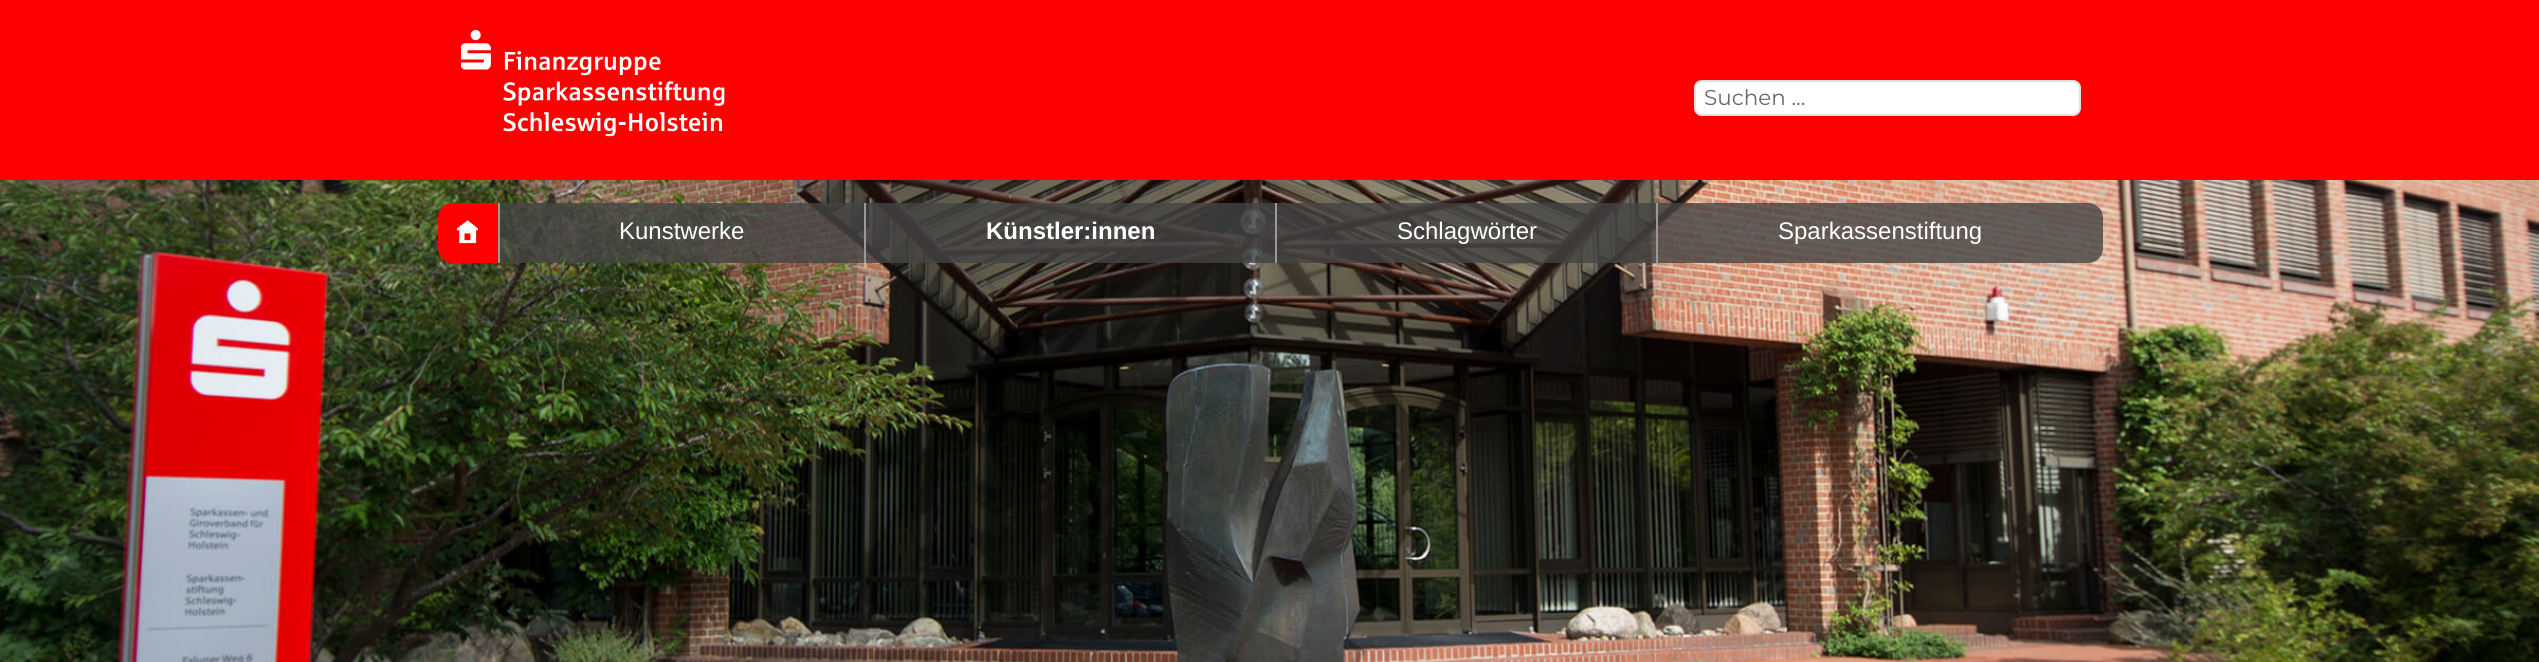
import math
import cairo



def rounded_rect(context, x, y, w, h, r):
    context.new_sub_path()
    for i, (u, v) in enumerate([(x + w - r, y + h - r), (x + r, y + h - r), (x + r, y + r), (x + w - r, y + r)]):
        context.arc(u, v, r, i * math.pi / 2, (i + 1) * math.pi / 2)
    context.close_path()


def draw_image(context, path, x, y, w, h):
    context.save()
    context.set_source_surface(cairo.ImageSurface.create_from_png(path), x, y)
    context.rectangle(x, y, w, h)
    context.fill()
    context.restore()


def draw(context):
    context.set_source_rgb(1, 0, 0)
    context.paint()
    draw_image(context, "images/1.png", 461, 30, 264, 107)
    context.set_source_rgb(1, 1, 1)
    rounded_rect(context, 1694, 80, 387, 36, 8)
    context.fill()
    rounded_rect(context, 1695, 81, 385, 34, 7)
    context.set_source_rgba(102 / 255, 102 / 255, 102 / 255, 0.2)
    context.stroke()
    draw_image(context, "images/3.png", 0, 180, 2539, 482)
    context.set_source_rgb(1, 0, 0)
    context.new_path()
    context.move_to(453, 203)
    context.line_to(498, 203)
    context.line_to(498, 263)
    context.line_to(453, 263)
    context.curve_to(444.5, 263, 438, 256.5, 438, 248)
    context.line_to(438, 218)
    context.curve_to(438, 209.5, 444.5, 203, 453, 203)
    context.close_path()
    context.fill()
    draw_image(context, "images/2.png", 456, 220, 22, 24)
    context.set_source_rgba(68 / 255, 68 / 255, 68 / 255, 0.8)
    context.rectangle(500, 203, 364, 60)
    context.fill()
    context.set_source_rgb(153 / 255, 153 / 255, 153 / 255)
    context.rectangle(498, 203, 2, 60)
    context.fill()
    context.set_source_rgba(68 / 255, 68 / 255, 68 / 255, 0.8)
    context.rectangle(866, 203, 409, 60)
    context.fill()
    context.set_source_rgb(153 / 255, 153 / 255, 153 / 255)
    context.rectangle(864, 203, 2, 60)
    context.fill()
    context.set_source_rgba(68 / 255, 68 / 255, 68 / 255, 0.8)
    context.rectangle(1277, 203, 379, 60)
    context.fill()
    context.set_source_rgb(153 / 255, 153 / 255, 153 / 255)
    context.rectangle(1275, 203, 2, 60)
    context.fill()
    context.set_source_rgba(68 / 255, 68 / 255, 68 / 255, 0.8)
    context.new_path()
    context.move_to(1656, 203)
    context.line_to(2088, 203)
    context.curve_to(2096.5, 203, 2103, 209.5, 2103, 218)
    context.line_to(2103, 248)
    context.curve_to(2103, 256.5, 2096.5, 263, 2088, 263)
    context.line_to(1656, 263)
    context.close_path()
    context.fill()
    context.set_source_rgb(153 / 255, 153 / 255, 153 / 255)
    context.rectangle(1656, 203, 2, 60)
    context.fill()
    context.select_font_face("Montserrat Thin")
    context.set_font_size(21.5)
    context.set_source_rgb(104 / 255, 104 / 255, 104 / 255)
    context.move_to(1704, 105)
    context.show_text("Suchen …")
    context.select_font_face("Liberation Sans")
    context.set_font_size(24)
    context.set_source_rgb(1, 1, 1)
    context.move_to(619, 239)
    context.show_text("Kunstwerke")
    context.select_font_face("Liberation Sans", cairo.FontSlant.NORMAL, cairo.FontWeight.BOLD)
    context.move_to(986, 239)
    context.show_text("Künstler:innen")
    context.select_font_face("Liberation Sans")
    context.move_to(1397, 239)
    context.show_text("Schlagwörter")
    context.move_to(1778, 239)
    context.show_text("Sparkassenstiftung")


surface = cairo.ImageSurface(cairo.Format.RGB24, 2539, 662)
context = cairo.Context(surface)
options = cairo.FontOptions()
options.set_hint_metrics(cairo.HintMetrics.OFF)
options.set_hint_style(cairo.HintStyle.NONE)
context.set_font_options(options)
context.set_miter_limit(4)
draw(context)
surface.write_to_png("out.png")
